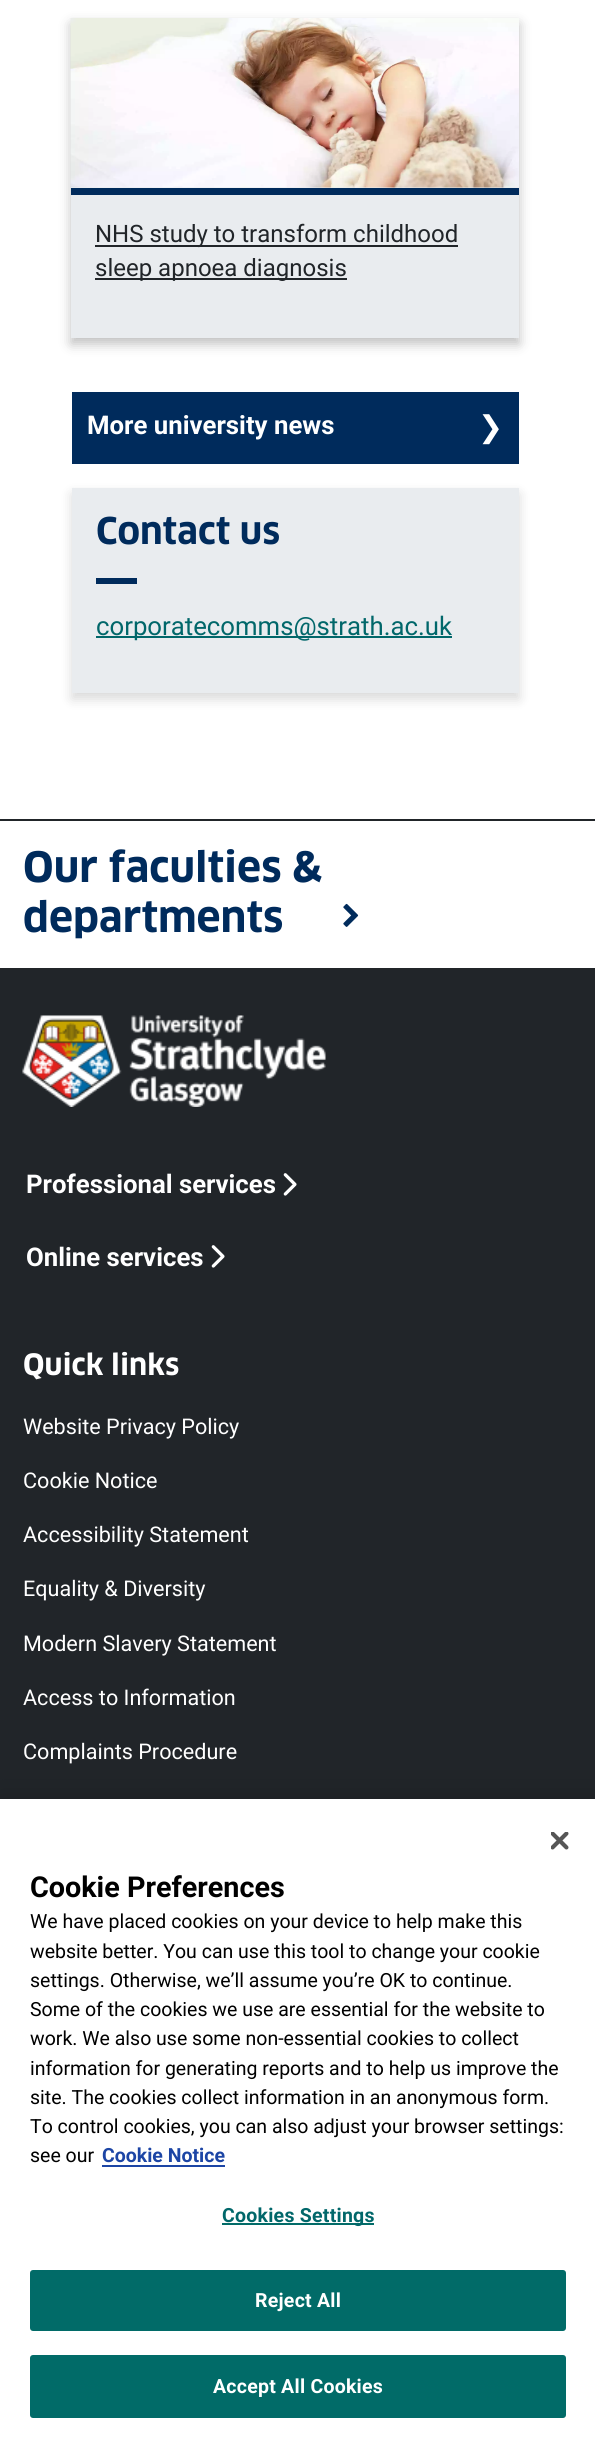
import math
import cairo



def draw_spaced(context, x, y, s, letter, word):
    context.move_to(x, y)
    for ch in s:
        context.show_text(ch)
        context.rel_move_to(letter + word * (ch == ' '), 0)


def rounded_rect(context, x, y, w, h, r):
    context.new_sub_path()
    for i, (u, v) in enumerate([(x + w - r, y + h - r), (x + r, y + h - r), (x + r, y + r), (x + w - r, y + r)]):
        context.arc(u, v, r, i * math.pi / 2, (i + 1) * math.pi / 2)
    context.close_path()


def draw_shadow(context, x, y, w, h, r, blur, alpha):
    context.push_group_with_content(cairo.Content.ALPHA)
    context.set_operator(cairo.Operator.SOURCE)
    for i in range(15, -16, -2):
        e = blur * i / 6
        if min(w, h) + 2 * e > 0:
            context.set_source_rgba(0, 0, 0, alpha * math.erfc((i - 1) / 8.5) / 2)
            rounded_rect(context, x - e, y - e, w + 2 * e, h + 2 * e, max(0, min(r + e + blur * .6, min(w, h) / 2 + e)))
            context.fill()
    context.mask(context.pop_group())


def draw_image(context, path, x, y, w, h):
    context.save()
    context.set_source_surface(cairo.ImageSurface.create_from_png(path), x, y)
    context.rectangle(x, y, w, h)
    context.fill()
    context.restore()


def draw(context):
    context.set_source_rgb(1, 1, 1)
    context.paint()
    context.set_source_rgb(0, 0, 0)
    draw_shadow(context, 71, 24, 448, 320, 0, 6, 0.25)
    context.set_source_rgb(233 / 255, 236 / 255, 239 / 255)
    context.rectangle(71, 187, 448, 151)
    context.fill()
    draw_image(context, "images/1.png", 70, 18, 449, 170)
    context.set_source_rgb(0, 43 / 255, 92 / 255)
    context.rectangle(71, 188, 448, 7)
    context.fill()
    context.set_source_rgb(33 / 255, 37 / 255, 41 / 255)
    context.rectangle(95, 245, 363, 2)
    context.fill()
    context.rectangle(95, 278, 252, 2)
    context.fill()
    context.set_source_rgb(0, 43 / 255, 92 / 255)
    context.rectangle(72, 392, 447, 72)
    context.fill()
    context.set_source_rgb(0, 0, 0)
    draw_shadow(context, 72, 494, 447, 205, 0, 6, 0.15)
    context.set_source_rgb(233 / 255, 236 / 255, 239 / 255)
    context.rectangle(72, 488, 447, 205)
    context.fill()
    context.set_source_rgb(0, 43 / 255, 92 / 255)
    context.rectangle(96, 578, 41, 6)
    context.fill()
    context.set_source_rgb(1 / 255, 103 / 255, 106 / 255)
    context.rectangle(96, 636, 356, 2)
    context.fill()
    context.set_source_rgb(33 / 255, 37 / 255, 41 / 255)
    context.rectangle(0, 819, 595, 2)
    context.fill()
    draw_image(context, "images/2.png", 343, 903, 16, 24)
    context.rectangle(0, 968, 595, 831)
    context.fill()
    draw_image(context, "images/3.png", 22, 1015, 304, 92)
    draw_image(context, "images/4.png", 283, 1173, 14, 23)
    draw_image(context, "images/4.png", 211, 1245, 14, 23)
    context.set_source_rgb(0, 0, 0)
    draw_shadow(context, 0, 1799, 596, 643, 0, 13.5, 0.2)
    context.set_source_rgb(1, 1, 1)
    context.rectangle(0, 1799, 595, 643)
    context.fill()
    draw_image(context, "images/5.png", 551, 1832, 18, 18)
    context.set_source_rgb(28 / 255, 69 / 255, 165 / 255)
    context.rectangle(102, 2165, 123, 2)
    context.fill()
    context.set_source_rgb(1 / 255, 107 / 255, 104 / 255)
    context.rectangle(222, 2223, 152, 2)
    context.fill()
    rounded_rect(context, 31, 2271, 534, 59, 2)
    context.fill_preserve()
    context.stroke()
    rounded_rect(context, 31, 2356, 534, 61, 2)
    context.fill_preserve()
    context.stroke()
    context.select_font_face("Roboto")
    context.set_font_size(24)
    context.set_source_rgb(33 / 255, 37 / 255, 41 / 255)
    context.move_to(95, 242)
    context.show_text("NHS study to transform childhood")
    context.move_to(95, 276)
    context.show_text("sleep apnoea diagnosis")
    context.select_font_face("Roboto", cairo.FontSlant.NORMAL, cairo.FontWeight.BOLD)
    context.set_font_size(25.75)
    context.set_source_rgb(1, 1, 1)
    context.move_to(87, 434)
    context.show_text("More university news")
    context.select_font_face("DejaVu Sans")
    context.set_font_size(30)
    context.move_to(478, 437)
    context.show_text("❯")
    context.select_font_face("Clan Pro", cairo.FontSlant.NORMAL, cairo.FontWeight.BOLD)
    context.set_font_size(36)
    context.set_source_rgb(0, 43 / 255, 92 / 255)
    context.move_to(96, 544)
    context.show_text("Contact us")
    context.select_font_face("Roboto")
    context.set_font_size(25.75)
    context.set_source_rgb(1 / 255, 103 / 255, 106 / 255)
    context.move_to(96, 635)
    context.show_text("corporatecomms@strath.ac.uk")
    context.select_font_face("Clan Pro", cairo.FontSlant.NORMAL, cairo.FontWeight.BOLD)
    context.set_font_size(41)
    context.set_source_rgb(0, 43 / 255, 92 / 255)
    context.move_to(23, 882)
    context.show_text("Our faculties &")
    context.move_to(23, 932)
    context.show_text("departments")
    context.select_font_face("Roboto", cairo.FontSlant.NORMAL, cairo.FontWeight.BOLD)
    context.set_font_size(25.75)
    context.set_source_rgb(1, 1, 1)
    context.move_to(26, 1193)
    context.show_text("Professional services")
    context.move_to(26, 1266)
    context.show_text("Online services")
    context.select_font_face("Clan Pro", cairo.FontSlant.NORMAL, cairo.FontWeight.BOLD)
    context.set_font_size(28.75)
    context.move_to(23, 1375)
    context.show_text("Quick links")
    context.select_font_face("Roboto")
    context.set_font_size(21.6)
    context.move_to(23, 1434)
    context.show_text("Website Privacy Policy")
    context.move_to(23, 1488)
    context.show_text("Cookie Notice")
    context.move_to(23, 1542)
    context.show_text("Accessibility Statement")
    context.move_to(23, 1596)
    context.show_text("Equality & Diversity")
    context.move_to(23, 1651)
    context.show_text("Modern Slavery Statement")
    context.move_to(23, 1705)
    context.show_text("Access to Information")
    context.move_to(23, 1759)
    context.show_text("Complaints Procedure")
    context.select_font_face("Roboto", cairo.FontSlant.NORMAL, cairo.FontWeight.BOLD)
    context.set_font_size(28.75)
    context.set_source_rgb(0, 0, 0)
    context.move_to(30, 1897)
    context.show_text("Cookie Preferences")
    context.select_font_face("Roboto")
    context.set_font_size(19.5)
    context.move_to(30, 1928)
    context.show_text("We have placed cookies on your device to help make this")
    context.move_to(30, 1958)
    context.show_text("website better. You can use this tool to change your cookie")
    context.move_to(30, 1987)
    context.show_text("settings. Otherwise, we’ll assume you’re OK to continue.")
    context.move_to(30, 2016)
    context.show_text("Some of the cookies we use are essential for the website to")
    context.move_to(30, 2045)
    context.show_text("work. We also use some non-essential cookies to collect")
    context.move_to(30, 2075)
    context.show_text("information for generating reports and to help us improve the")
    context.move_to(30, 2104)
    context.show_text("site. The cookies collect information in an anonymous form.")
    context.move_to(30, 2133)
    context.show_text("To control cookies, you can also adjust your browser settings:")
    context.move_to(30, 2162)
    context.show_text("see our")
    context.select_font_face("Roboto", cairo.FontSlant.NORMAL, cairo.FontWeight.BOLD)
    context.set_source_rgb(28 / 255, 69 / 255, 165 / 255)
    context.move_to(102, 2162)
    context.show_text("Cookie Notice")
    context.set_source_rgb(1 / 255, 103 / 255, 106 / 255)
    draw_spaced(context, 222, 2222, "Cookies Settings", 0.25, 0)
    context.set_source_rgb(1, 1, 1)
    draw_spaced(context, 255, 2307, "Reject All", 0.25, 0)
    draw_spaced(context, 213, 2393, "Accept All Cookies", 0.25, 0)


surface = cairo.ImageSurface(cairo.Format.RGB24, 595, 2442)
context = cairo.Context(surface)
options = cairo.FontOptions()
options.set_hint_metrics(cairo.HintMetrics.OFF)
options.set_hint_style(cairo.HintStyle.NONE)
context.set_font_options(options)
context.set_miter_limit(4)
draw(context)
surface.write_to_png("out.png")
